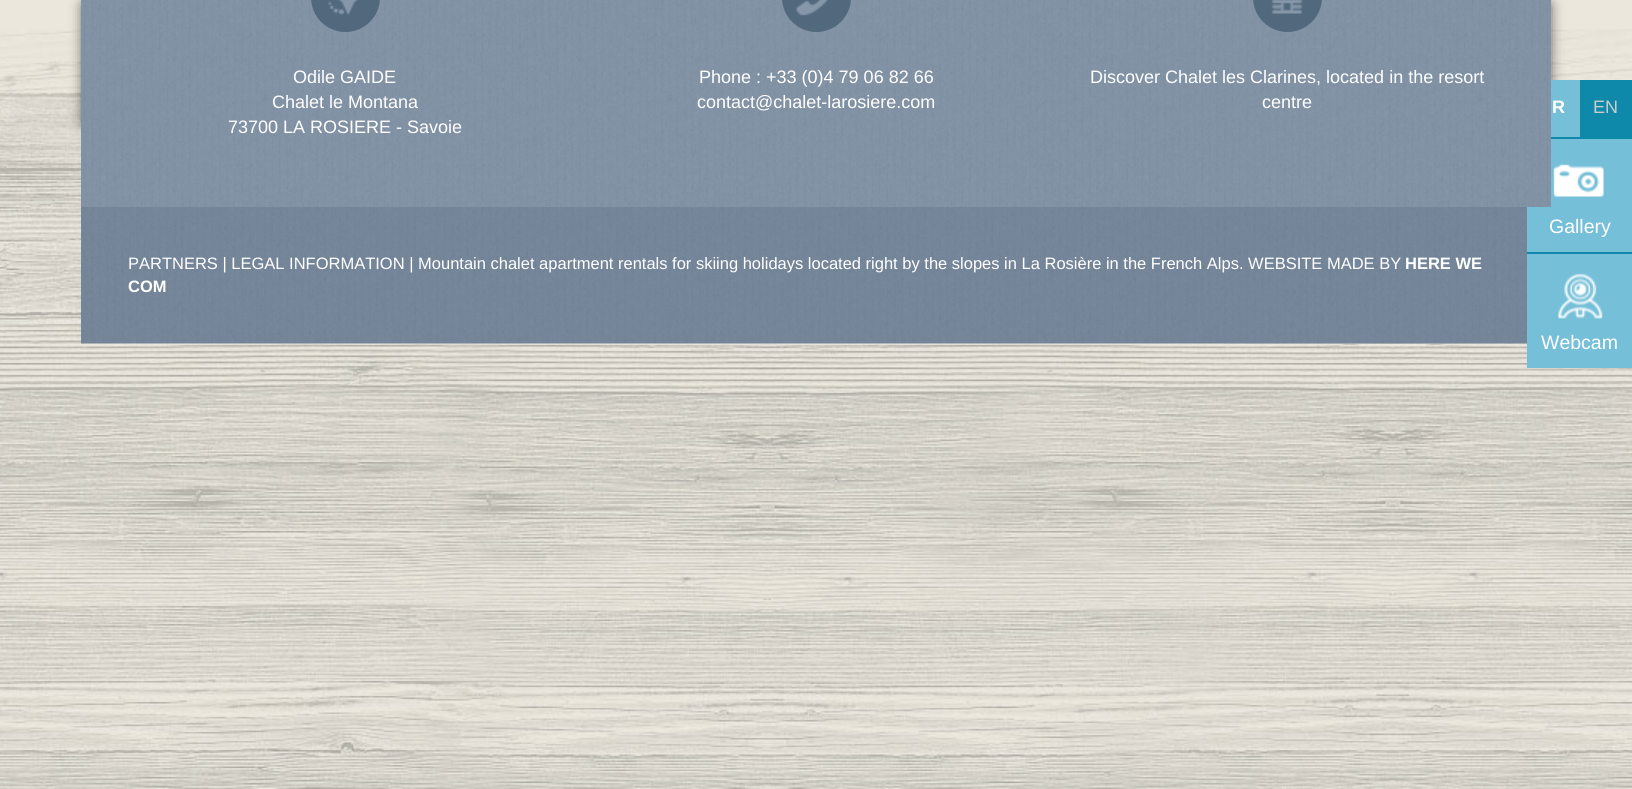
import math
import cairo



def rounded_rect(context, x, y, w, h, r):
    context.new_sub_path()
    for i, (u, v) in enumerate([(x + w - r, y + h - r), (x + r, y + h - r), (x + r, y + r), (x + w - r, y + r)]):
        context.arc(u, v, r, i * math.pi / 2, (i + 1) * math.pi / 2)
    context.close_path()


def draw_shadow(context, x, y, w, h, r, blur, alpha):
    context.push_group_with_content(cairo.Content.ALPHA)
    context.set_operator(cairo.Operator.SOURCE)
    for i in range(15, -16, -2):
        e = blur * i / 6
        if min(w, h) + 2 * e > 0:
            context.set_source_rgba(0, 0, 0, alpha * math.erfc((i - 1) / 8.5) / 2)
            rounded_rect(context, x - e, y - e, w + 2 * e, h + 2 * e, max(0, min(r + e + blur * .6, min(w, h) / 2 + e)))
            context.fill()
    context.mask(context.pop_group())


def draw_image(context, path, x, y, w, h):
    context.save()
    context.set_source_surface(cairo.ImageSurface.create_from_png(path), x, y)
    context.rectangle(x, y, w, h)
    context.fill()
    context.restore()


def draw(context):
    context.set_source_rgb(235 / 255, 231 / 255, 220 / 255)
    context.paint()
    draw_image(context, "images/1.png", 0, 29, 1632, 760)
    context.set_source_rgb(0, 0, 0)
    draw_shadow(context, 86, 5, 1461, 118, 0, 7.5, 1)
    context.set_source_rgb(117 / 255, 191 / 255, 216 / 255)
    context.rectangle(1527, 139, 105, 113)
    context.fill()
    draw_image(context, "images/2.png", 81, 0, 1470, 207)
    context.set_source_rgb(82 / 255, 104 / 255, 125 / 255)
    rounded_rect(context, 311, -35, 69, 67, 34.5)
    context.fill()
    draw_image(context, "images/3.png", 328, 0, 30, 15)
    rounded_rect(context, 782, -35, 69, 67, 34.5)
    context.fill()
    draw_image(context, "images/4.png", 796, 0, 32, 16)
    rounded_rect(context, 1253, -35, 69, 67, 34.5)
    context.fill()
    draw_image(context, "images/5.png", 1271, 0, 32, 14)
    draw_image(context, "images/6.png", 81, 207, 1446, 137)
    context.set_source_rgb(117 / 255, 191 / 255, 216 / 255)
    context.rectangle(1551, 80, 29, 57)
    context.fill()
    context.set_source_rgb(14 / 255, 137 / 255, 170 / 255)
    context.rectangle(1580, 80, 52, 57)
    context.fill()
    draw_image(context, "images/7.png", 1553, 164, 51, 33)
    context.rectangle(1551, 137, 81, 2)
    context.fill()
    context.set_source_rgb(117 / 255, 191 / 255, 216 / 255)
    context.rectangle(1527, 254, 105, 114)
    context.fill()
    draw_image(context, "images/8.png", 1558, 273, 45, 46)
    context.set_source_rgb(14 / 255, 137 / 255, 170 / 255)
    context.rectangle(1527, 252, 105, 2)
    context.fill()
    context.select_font_face("Liberation Sans")
    context.set_font_size(18)
    context.set_source_rgb(1, 1, 1)
    context.move_to(293, 83)
    context.show_text("Odile GAIDE")
    context.move_to(272, 108)
    context.show_text("Chalet le Montana")
    context.move_to(228, 133)
    context.show_text("73700 LA ROSIERE - Savoie")
    context.move_to(699, 83)
    context.show_text("Phone : +33 (0)4 79 06 82 66")
    context.move_to(697, 108)
    context.show_text("contact@chalet-larosiere.com")
    context.move_to(1090, 83)
    context.show_text("Discover Chalet les Clarines, located in the resort")
    context.move_to(1262, 108)
    context.show_text("centre")
    context.set_font_size(16.5)
    context.move_to(128, 269)
    context.show_text("PARTNERS | LEGAL INFORMATION | Mountain chalet apartment rentals for skiing holidays located right by the slopes in La Rosière in the French Alps. WEBSITE MADE BY")
    context.select_font_face("Liberation Sans", cairo.FontSlant.NORMAL, cairo.FontWeight.BOLD)
    context.move_to(1405, 269)
    context.show_text("HERE WE")
    context.move_to(128, 292)
    context.show_text("COM")
    context.set_font_size(18)
    context.move_to(1552, 113)
    context.show_text("R")
    context.select_font_face("Liberation Sans")
    context.set_source_rgb(204 / 255, 204 / 255, 204 / 255)
    context.move_to(1593, 113)
    context.show_text("EN")
    context.set_font_size(19.5)
    context.set_source_rgb(1, 1, 1)
    context.move_to(1549, 233)
    context.show_text("Gallery")
    context.move_to(1541, 349)
    context.show_text("Webcam")


surface = cairo.ImageSurface(cairo.Format.RGB24, 1632, 789)
context = cairo.Context(surface)
options = cairo.FontOptions()
options.set_hint_metrics(cairo.HintMetrics.OFF)
options.set_hint_style(cairo.HintStyle.NONE)
context.set_font_options(options)
context.set_miter_limit(4)
draw(context)
surface.write_to_png("out.png")
